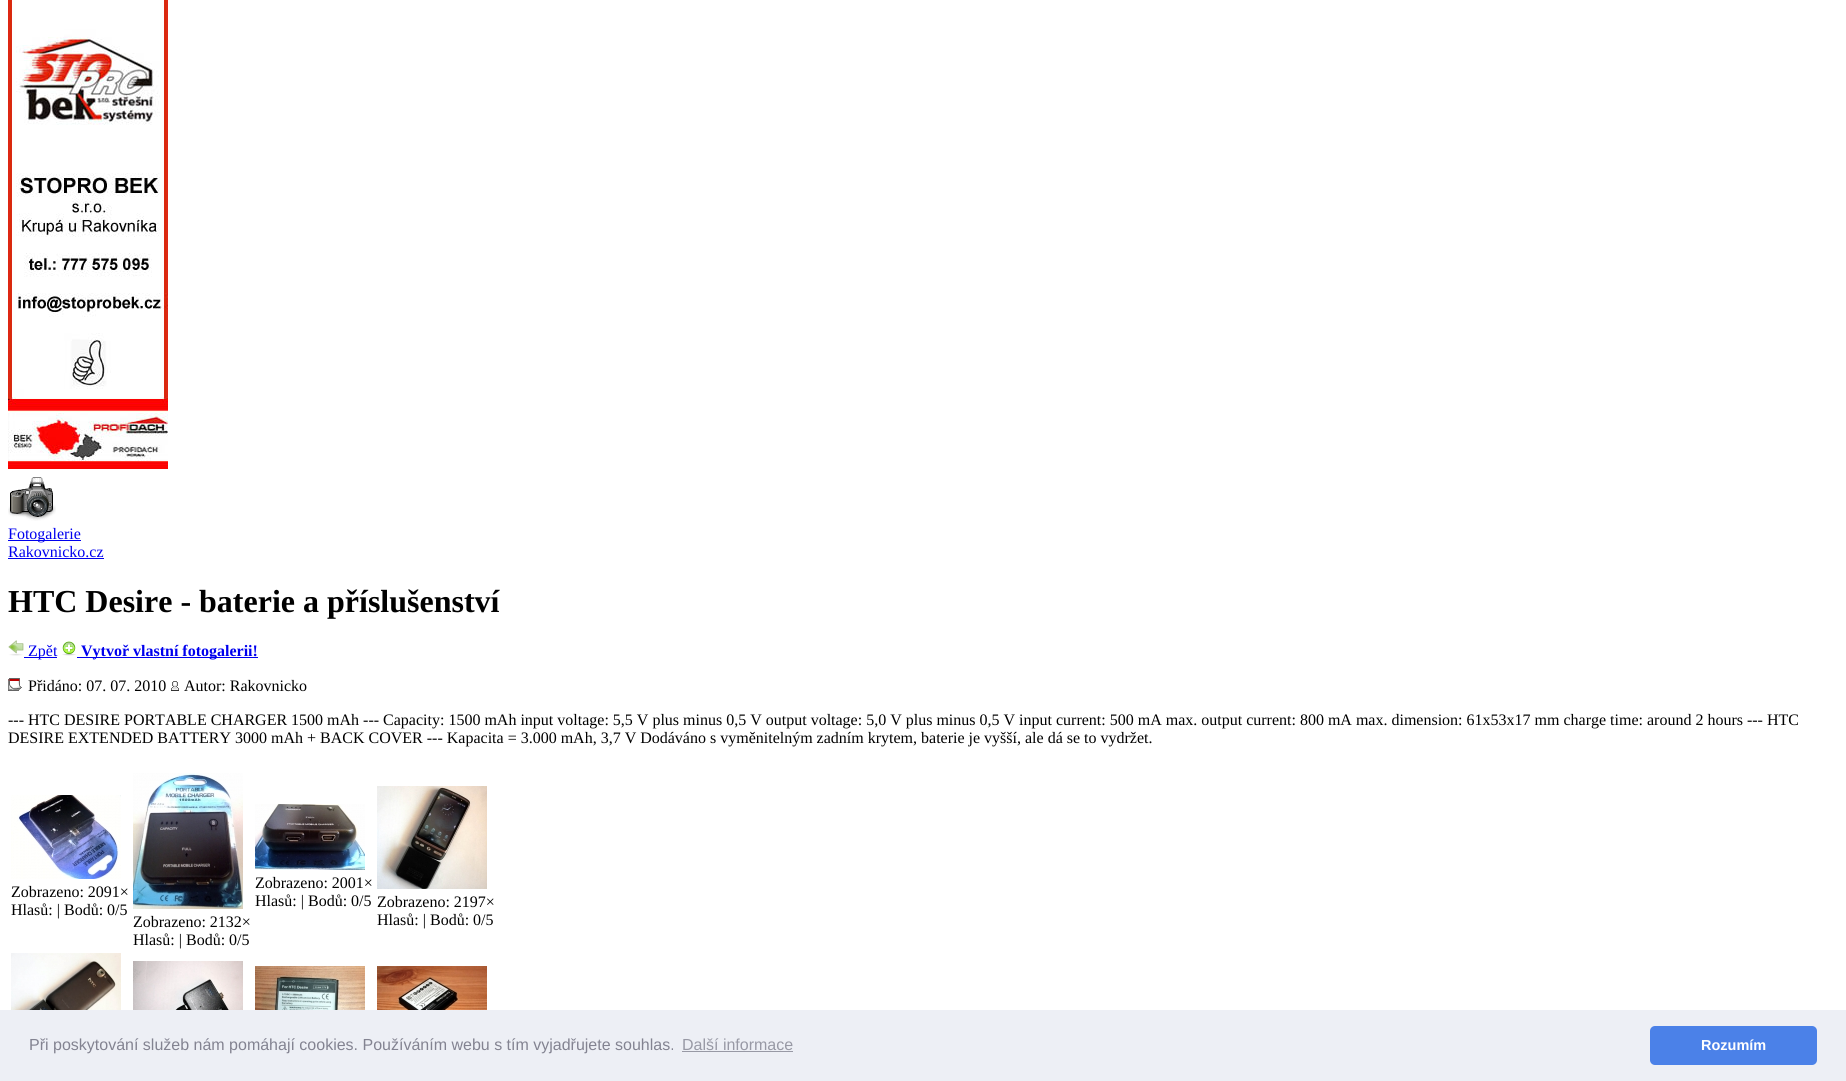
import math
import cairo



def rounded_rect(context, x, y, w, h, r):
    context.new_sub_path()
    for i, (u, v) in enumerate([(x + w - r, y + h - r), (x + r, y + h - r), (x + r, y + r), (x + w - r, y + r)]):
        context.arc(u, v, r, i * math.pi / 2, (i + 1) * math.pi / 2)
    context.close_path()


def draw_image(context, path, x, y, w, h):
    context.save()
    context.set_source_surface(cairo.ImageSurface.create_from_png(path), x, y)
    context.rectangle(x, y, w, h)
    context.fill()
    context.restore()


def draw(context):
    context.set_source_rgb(1, 1, 1)
    context.paint()
    draw_image(context, "images/1.png", 8, 0, 160, 469)
    draw_image(context, "images/2.png", 8, 477, 48, 44)
    context.set_source_rgb(0, 0, 238 / 255)
    context.rectangle(8, 540, 73, 1)
    context.fill()
    context.rectangle(8, 558, 96, 1)
    context.fill()
    draw_image(context, "images/3.png", 8, 640, 16, 16)
    context.rectangle(24, 657, 33, 1)
    context.fill()
    draw_image(context, "images/4.png", 62, 641, 14, 15)
    context.rectangle(77, 657, 181, 1)
    context.fill()
    draw_image(context, "images/5.png", 8, 678, 14, 13)
    draw_image(context, "images/6.png", 171, 681, 8, 10)
    draw_image(context, "images/7.png", 11, 795, 110, 84)
    draw_image(context, "images/8.png", 133, 773, 110, 136)
    draw_image(context, "images/9.png", 255, 804, 110, 66)
    draw_image(context, "images/10.png", 377, 786, 110, 103)
    draw_image(context, "images/11.png", 11, 953, 110, 57)
    draw_image(context, "images/12.png", 133, 961, 110, 49)
    draw_image(context, "images/13.png", 255, 966, 110, 44)
    draw_image(context, "images/14.png", 377, 966, 110, 44)
    context.set_source_rgb(237 / 255, 239 / 255, 245 / 255)
    context.rectangle(0, 1010, 1846, 71)
    context.fill()
    context.set_source_rgb(152 / 255, 153 / 255, 165 / 255)
    context.rectangle(682, 1051, 111, 1)
    context.fill()
    context.set_source_rgb(75 / 255, 129 / 255, 232 / 255)
    rounded_rect(context, 1650, 1026, 167, 39, 5)
    context.fill()
    context.select_font_face("Liberation Serif")
    context.set_font_size(16)
    context.set_source_rgb(0, 0, 238 / 255)
    context.move_to(8, 539)
    context.show_text("Fotogalerie")
    context.move_to(8, 557)
    context.show_text("Rakovnicko.cz")
    context.select_font_face("Liberation Serif", cairo.FontSlant.NORMAL, cairo.FontWeight.BOLD)
    context.set_font_size(32)
    context.set_source_rgb(0, 0, 0)
    context.move_to(8, 612)
    context.show_text("HTC Desire - baterie a příslušenství")
    context.select_font_face("Liberation Serif")
    context.set_font_size(16)
    context.set_source_rgb(0, 0, 238 / 255)
    context.move_to(28, 656)
    context.show_text("Zpět")
    context.select_font_face("Liberation Serif", cairo.FontSlant.NORMAL, cairo.FontWeight.BOLD)
    context.move_to(81, 656)
    context.show_text("Vytvoř vlastní fotogalerii!")
    context.select_font_face("Liberation Serif")
    context.set_source_rgb(0, 0, 0)
    context.move_to(28, 691)
    context.show_text("Přidáno: 07. 07. 2010")
    context.move_to(184, 691)
    context.show_text("Autor: Rakovnicko")
    context.move_to(8, 725)
    context.show_text("--- HTC DESIRE PORTABLE CHARGER 1500 mAh --- Capacity: 1500 mAh input voltage: 5,5 V plus minus 0,5 V output voltage: 5,0 V plus minus 0,5 V input current: 500 mA max. output current: 800 mA max. dimension: 61x53x17 mm charge time: around 2 hours --- HTC")
    context.move_to(8, 743)
    context.show_text("DESIRE EXTENDED BATTERY 3000 mAh + BACK COVER --- Kapacita = 3.000 mAh, 3,7 V Dodáváno s vyměnitelným zadním krytem, baterie je vyšší, ale dá se to vydržet.")
    context.move_to(11, 897)
    context.show_text("Zobrazeno: 2091×")
    context.move_to(11, 915)
    context.show_text("Hlasů: | Bodů: 0/5")
    context.move_to(133, 927)
    context.show_text("Zobrazeno: 2132×")
    context.move_to(133, 945)
    context.show_text("Hlasů: | Bodů: 0/5")
    context.move_to(255, 888)
    context.show_text("Zobrazeno: 2001×")
    context.move_to(255, 906)
    context.show_text("Hlasů: | Bodů: 0/5")
    context.move_to(377, 907)
    context.show_text("Zobrazeno: 2197×")
    context.move_to(377, 925)
    context.show_text("Hlasů: | Bodů: 0/5")
    context.select_font_face("Liberation Sans")
    context.set_source_rgb(131 / 255, 131 / 255, 145 / 255)
    context.move_to(29, 1050)
    context.show_text("Při poskytování služeb nám pomáhají cookies. Používáním webu s tím vyjadřujete souhlas.")
    context.set_source_rgb(152 / 255, 153 / 255, 165 / 255)
    context.move_to(682, 1050)
    context.show_text("Další informace")
    context.select_font_face("Liberation Sans", cairo.FontSlant.NORMAL, cairo.FontWeight.BOLD)
    context.set_font_size(14.5)
    context.set_source_rgb(1, 1, 1)
    context.move_to(1701, 1050)
    context.show_text("Rozumím")


surface = cairo.ImageSurface(cairo.Format.RGB24, 1846, 1081)
context = cairo.Context(surface)
options = cairo.FontOptions()
options.set_hint_metrics(cairo.HintMetrics.OFF)
options.set_hint_style(cairo.HintStyle.NONE)
context.set_font_options(options)
context.set_miter_limit(4)
draw(context)
surface.write_to_png("out.png")
